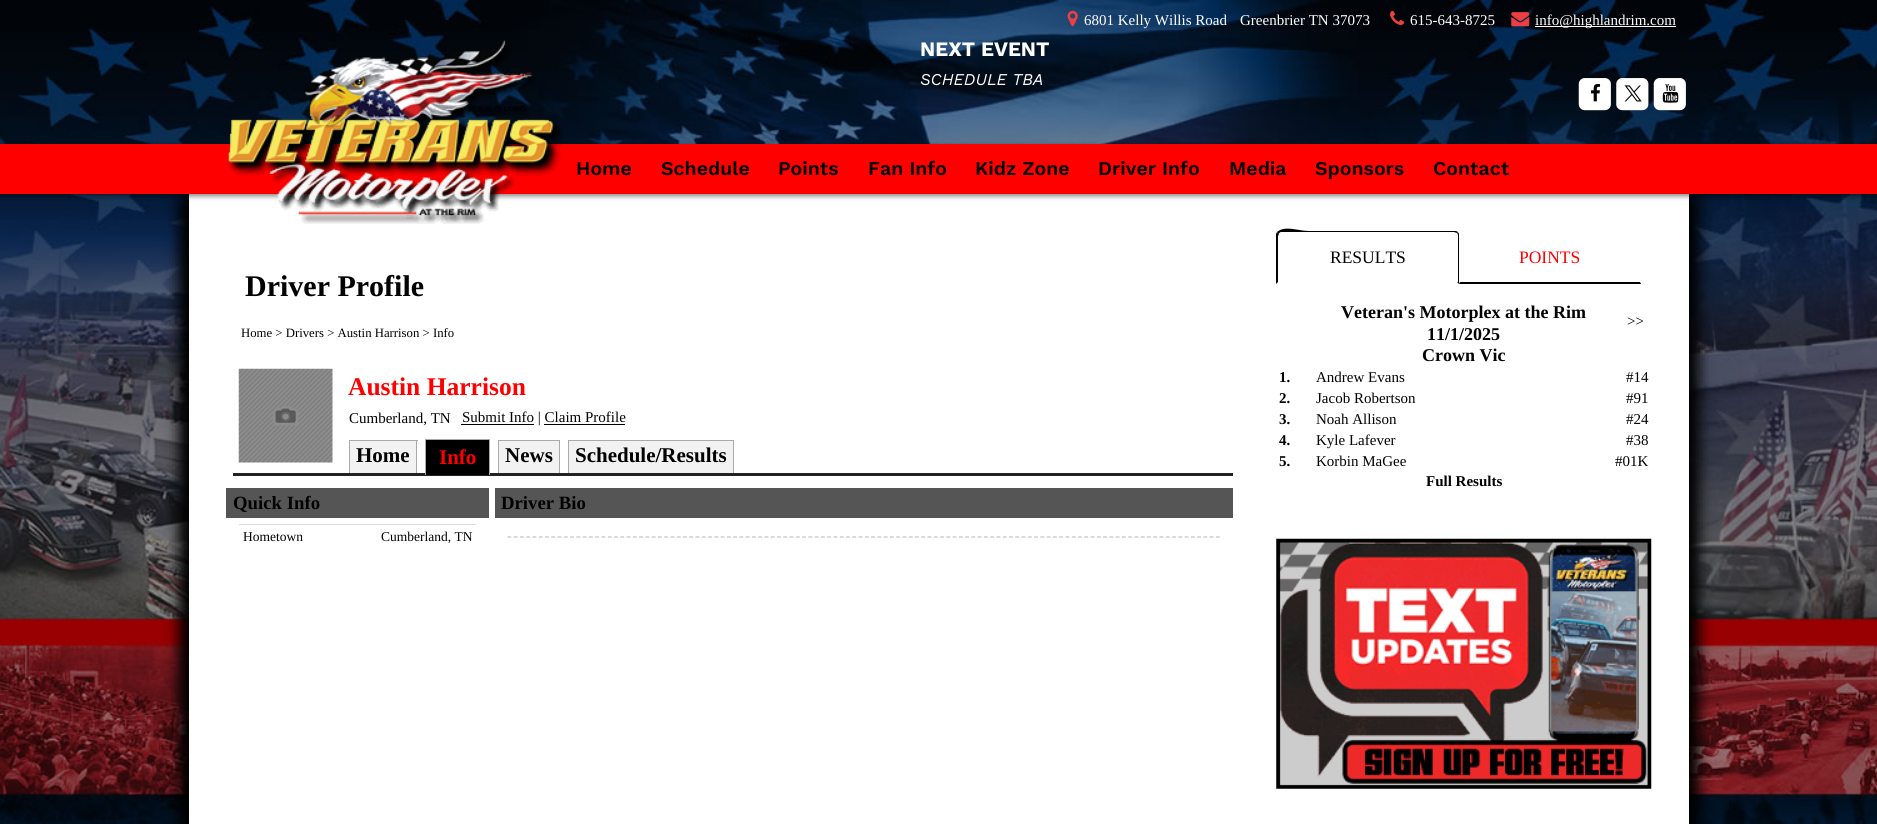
import math
import cairo



def rounded_rect(context, x, y, w, h, r):
    context.new_sub_path()
    for i, (u, v) in enumerate([(x + w - r, y + h - r), (x + r, y + h - r), (x + r, y + r), (x + w - r, y + r)]):
        context.arc(u, v, r, i * math.pi / 2, (i + 1) * math.pi / 2)
    context.close_path()


def draw_shadow(context, x, y, w, h, r, blur, alpha):
    context.push_group_with_content(cairo.Content.ALPHA)
    context.set_operator(cairo.Operator.SOURCE)
    for i in range(15, -16, -2):
        e = blur * i / 6
        if min(w, h) + 2 * e > 0:
            context.set_source_rgba(0, 0, 0, alpha * math.erfc((i - 1) / 8.5) / 2)
            rounded_rect(context, x - e, y - e, w + 2 * e, h + 2 * e, max(0, min(r + e + blur * .6, min(w, h) / 2 + e)))
            context.fill()
    context.mask(context.pop_group())


def draw_image(context, path, x, y, w, h):
    context.save()
    context.set_source_surface(cairo.ImageSurface.create_from_png(path), x, y)
    context.rectangle(x, y, w, h)
    context.fill()
    context.restore()


def draw(context):
    context.set_source_rgb(1, 1, 1)
    context.paint()
    draw_image(context, "images/1.png", 0, 0, 1877, 824)
    draw_image(context, "images/2.png", 1067, 10, 11, 17)
    draw_image(context, "images/3.png", 1390, 10, 15, 15)
    draw_image(context, "images/4.png", 1511, 12, 19, 15)
    context.set_source_rgb(1, 1, 1)
    context.rectangle(1535, 26, 141, 1)
    context.fill()
    context.set_source_rgb(0, 0, 0)
    draw_shadow(context, 183, 188, 1512, 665, 0, 9.5, 0.75)
    context.set_source_rgb(1, 1, 1)
    context.rectangle(189, 194, 1500, 630)
    context.fill()
    context.set_source_rgb(0, 0, 0)
    draw_shadow(context, 0, 146, 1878, 50, 0, 2.5, 0.5)
    context.set_source_rgb(1, 0, 0)
    context.rectangle(0, 144, 1877, 50)
    context.fill()
    draw_image(context, "images/5.png", 227, 40, 336, 184)
    draw_image(context, "images/6.png", 1578, 78, 33, 33)
    draw_image(context, "images/7.png", 1591, 83, 10, 19)
    draw_image(context, "images/8.png", 1616, 78, 33, 33)
    draw_image(context, "images/9.png", 1624, 85, 18, 17)
    draw_image(context, "images/10.png", 1653, 78, 33, 33)
    draw_image(context, "images/11.png", 1662, 83, 17, 20)
    draw_image(context, "images/12.png", 238, 368, 95, 95)
    context.set_source_rgb(2 / 255, 2 / 255, 2 / 255)
    context.rectangle(461, 424, 73, 1)
    context.fill()
    context.rectangle(544, 424, 81, 1)
    context.fill()
    context.set_source_rgb(34 / 255, 34 / 255, 34 / 255)
    context.rectangle(233, 473, 1000, 3)
    context.fill()
    context.set_source_rgb(242 / 255, 242 / 255, 242 / 255)
    context.rectangle(350, 441, 66, 32)
    context.fill()
    context.set_source_rgb(170 / 255, 170 / 255, 170 / 255)
    context.rectangle(349, 440, 69, 1)
    context.fill()
    context.rectangle(416, 440, 1, 33)
    context.fill()
    context.rectangle(349, 440, 1, 33)
    context.fill()
    context.set_source_rgb(0, 0, 0)
    context.rectangle(426, 440, 63, 35)
    context.fill()
    context.set_source_rgb(170 / 255, 170 / 255, 170 / 255)
    context.rectangle(425, 439, 65, 1)
    context.fill()
    context.rectangle(489, 439, 1, 36)
    context.fill()
    context.rectangle(425, 439, 1, 36)
    context.fill()
    context.set_source_rgb(242 / 255, 242 / 255, 242 / 255)
    context.rectangle(499, 441, 60, 32)
    context.fill()
    context.set_source_rgb(170 / 255, 170 / 255, 170 / 255)
    context.rectangle(498, 440, 62, 1)
    context.fill()
    context.rectangle(559, 440, 1, 33)
    context.fill()
    context.rectangle(498, 440, 1, 33)
    context.fill()
    context.set_source_rgb(242 / 255, 242 / 255, 242 / 255)
    context.rectangle(569, 441, 164, 32)
    context.fill()
    context.set_source_rgb(170 / 255, 170 / 255, 170 / 255)
    context.rectangle(568, 440, 166, 1)
    context.fill()
    context.rectangle(733, 440, 1, 33)
    context.fill()
    context.rectangle(568, 440, 1, 33)
    context.fill()
    context.set_source_rgb(85 / 255, 85 / 255, 85 / 255)
    context.rectangle(226, 488, 263, 30)
    context.fill()
    context.set_source_rgb(221 / 255, 221 / 255, 221 / 255)
    context.rectangle(239, 524, 237, 1)
    context.fill()
    context.set_source_rgb(85 / 255, 85 / 255, 85 / 255)
    context.rectangle(495, 488, 738, 30)
    context.fill()
    context.new_path()
    context.move_to(507.5, 537)
    context.line_to(1220, 537)
    context.set_source_rgb(194 / 255, 194 / 255, 194 / 255)
    context.set_line_width(1.2)
    context.set_dash([3.75, 2.52])
    context.stroke()
    context.set_source_rgb(0, 0, 0)
    context.new_path()
    context.move_to(1281, 232)
    context.curve_to(1280, 232, 1279, 233, 1279, 234)
    context.line_to(1277, 232)
    context.curve_to(1285, 225, 1298, 231, 1309, 231)
    context.line_to(1456, 231)
    context.line_to(1458, 232)
    context.line_to(1457, 233)
    context.line_to(1454, 232)
    context.close_path()
    context.fill()
    context.new_path()
    context.move_to(1458, 232)
    context.line_to(1459, 234)
    context.line_to(1459, 284)
    context.line_to(1457, 282)
    context.line_to(1458, 282)
    context.line_to(1458, 236)
    context.curve_to(1458, 235, 1458, 234, 1457, 233)
    context.close_path()
    context.fill()
    context.new_path()
    context.move_to(1276, 284)
    context.line_to(1276, 234)
    context.line_to(1277, 232)
    context.line_to(1279, 234)
    context.line_to(1278, 236)
    context.line_to(1278, 282)
    context.close_path()
    context.fill()
    context.new_path()
    context.move_to(1459, 284)
    context.line_to(1460, 282)
    context.line_to(1640, 282)
    context.line_to(1641, 284)
    context.close_path()
    context.fill()
    draw_image(context, "images/13.png", 1276, 538, 376, 251)
    context.select_font_face("Liberation Serif")
    context.set_font_size(15)
    context.set_source_rgb(1, 1, 1)
    context.move_to(1084, 25)
    context.show_text("6801 Kelly Willis Road")
    context.move_to(1240, 25)
    context.show_text("Greenbrier TN 37073")
    context.move_to(1410, 25)
    context.show_text("615-643-8725")
    context.move_to(1535, 25)
    context.show_text("info@highlandrim.com")
    context.select_font_face("Work Sans", cairo.FontSlant.NORMAL, cairo.FontWeight.BOLD)
    context.set_font_size(20.5)
    context.move_to(920, 56)
    context.show_text("NEXT EVENT")
    context.select_font_face("Work Sans", cairo.FontSlant.ITALIC)
    context.set_font_size(16.5)
    context.move_to(920, 85)
    context.show_text("SCHEDULE TBA")
    context.select_font_face("Work Sans SemiBold")
    context.set_font_size(19.5)
    context.set_source_rgb(2 / 255, 2 / 255, 2 / 255)
    context.move_to(576, 175)
    context.show_text("Home")
    context.move_to(661, 175)
    context.show_text("Schedule")
    context.move_to(778, 175)
    context.show_text("Points")
    context.move_to(868, 175)
    context.show_text("Fan Info")
    context.move_to(975, 175)
    context.show_text("Kidz Zone")
    context.move_to(1098, 175)
    context.show_text("Driver Info")
    context.move_to(1229, 175)
    context.show_text("Media")
    context.move_to(1315, 175)
    context.show_text("Sponsors")
    context.move_to(1433, 175)
    context.show_text("Contact")
    context.select_font_face("Liberation Serif", cairo.FontSlant.NORMAL, cairo.FontWeight.BOLD)
    context.set_font_size(30)
    context.move_to(245, 296)
    context.show_text("Driver Profile")
    context.select_font_face("Liberation Serif")
    context.set_font_size(12.75)
    context.move_to(241, 337)
    context.show_text("Home > Drivers > Austin Harrison > Info")
    context.select_font_face("Liberation Serif", cairo.FontSlant.NORMAL, cairo.FontWeight.BOLD)
    context.set_font_size(25.5)
    context.set_source_rgb(1, 0, 0)
    context.move_to(348, 395)
    context.show_text("Austin Harrison")
    context.select_font_face("Liberation Serif")
    context.set_font_size(15)
    context.set_source_rgb(2 / 255, 2 / 255, 2 / 255)
    context.move_to(349, 423)
    context.show_text("Cumberland, TN")
    context.move_to(462, 422)
    context.show_text("Submit Info | Claim Profile")
    context.select_font_face("Liberation Serif", cairo.FontSlant.NORMAL, cairo.FontWeight.BOLD)
    context.set_font_size(21)
    context.move_to(356, 462)
    context.show_text("Home")
    context.set_source_rgb(1, 0, 0)
    context.move_to(439, 464)
    context.show_text("Info")
    context.set_source_rgb(2 / 255, 2 / 255, 2 / 255)
    context.move_to(505, 462)
    context.show_text("News")
    context.move_to(575, 462)
    context.show_text("Schedule/Results")
    context.set_font_size(18.75)
    context.move_to(233, 509)
    context.show_text("Quick Info")
    context.select_font_face("Liberation Serif")
    context.set_font_size(13.5)
    context.move_to(243, 541)
    context.show_text("Hometown")
    context.move_to(381, 541)
    context.show_text("Cumberland, TN")
    context.select_font_face("Liberation Serif", cairo.FontSlant.NORMAL, cairo.FontWeight.BOLD)
    context.set_font_size(18.75)
    context.move_to(501, 509)
    context.show_text("Driver Bio")
    context.select_font_face("Liberation Serif")
    context.set_font_size(17.5)
    context.move_to(1330, 263)
    context.show_text("RESULTS")
    context.set_source_rgb(1, 0, 0)
    context.move_to(1519, 263)
    context.show_text("POINTS")
    context.select_font_face("Liberation Serif", cairo.FontSlant.NORMAL, cairo.FontWeight.BOLD)
    context.set_font_size(18)
    context.set_source_rgb(2 / 255, 2 / 255, 2 / 255)
    context.move_to(1341, 318)
    context.show_text("Veteran's Motorplex at the Rim")
    context.move_to(1427, 340)
    context.show_text("11/1/2025")
    context.move_to(1422, 361)
    context.show_text("Crown Vic")
    context.set_font_size(15)
    context.move_to(1279, 382)
    context.show_text("1.")
    context.select_font_face("Liberation Serif")
    context.move_to(1316, 382)
    context.show_text("Andrew Evans")
    context.move_to(1626, 382)
    context.show_text("#14")
    context.select_font_face("Liberation Serif", cairo.FontSlant.NORMAL, cairo.FontWeight.BOLD)
    context.move_to(1279, 403)
    context.show_text("2.")
    context.select_font_face("Liberation Serif")
    context.move_to(1316, 403)
    context.show_text("Jacob Robertson")
    context.move_to(1626, 403)
    context.show_text("#91")
    context.select_font_face("Liberation Serif", cairo.FontSlant.NORMAL, cairo.FontWeight.BOLD)
    context.move_to(1279, 424)
    context.show_text("3.")
    context.select_font_face("Liberation Serif")
    context.move_to(1316, 424)
    context.show_text("Noah Allison")
    context.move_to(1626, 424)
    context.show_text("#24")
    context.select_font_face("Liberation Serif", cairo.FontSlant.NORMAL, cairo.FontWeight.BOLD)
    context.move_to(1279, 445)
    context.show_text("4.")
    context.select_font_face("Liberation Serif")
    context.move_to(1316, 445)
    context.show_text("Kyle Lafever")
    context.move_to(1626, 445)
    context.show_text("#38")
    context.select_font_face("Liberation Serif", cairo.FontSlant.NORMAL, cairo.FontWeight.BOLD)
    context.move_to(1279, 466)
    context.show_text("5.")
    context.select_font_face("Liberation Serif")
    context.move_to(1316, 466)
    context.show_text("Korbin MaGee")
    context.move_to(1615, 466)
    context.show_text("#01K")
    context.select_font_face("Liberation Serif", cairo.FontSlant.NORMAL, cairo.FontWeight.BOLD)
    context.move_to(1426, 486)
    context.show_text("Full Results")
    context.select_font_face("Liberation Serif")
    context.move_to(1627, 326)
    context.show_text(">>")


surface = cairo.ImageSurface(cairo.Format.RGB24, 1877, 824)
context = cairo.Context(surface)
options = cairo.FontOptions()
options.set_hint_metrics(cairo.HintMetrics.OFF)
options.set_hint_style(cairo.HintStyle.NONE)
context.set_font_options(options)
context.set_miter_limit(4)
draw(context)
surface.write_to_png("out.png")
